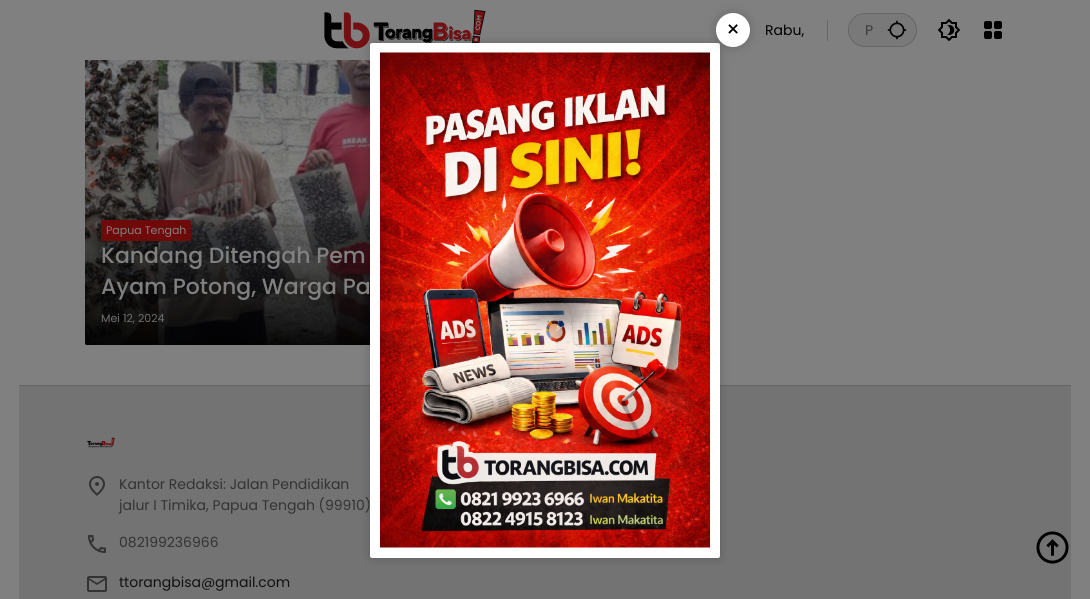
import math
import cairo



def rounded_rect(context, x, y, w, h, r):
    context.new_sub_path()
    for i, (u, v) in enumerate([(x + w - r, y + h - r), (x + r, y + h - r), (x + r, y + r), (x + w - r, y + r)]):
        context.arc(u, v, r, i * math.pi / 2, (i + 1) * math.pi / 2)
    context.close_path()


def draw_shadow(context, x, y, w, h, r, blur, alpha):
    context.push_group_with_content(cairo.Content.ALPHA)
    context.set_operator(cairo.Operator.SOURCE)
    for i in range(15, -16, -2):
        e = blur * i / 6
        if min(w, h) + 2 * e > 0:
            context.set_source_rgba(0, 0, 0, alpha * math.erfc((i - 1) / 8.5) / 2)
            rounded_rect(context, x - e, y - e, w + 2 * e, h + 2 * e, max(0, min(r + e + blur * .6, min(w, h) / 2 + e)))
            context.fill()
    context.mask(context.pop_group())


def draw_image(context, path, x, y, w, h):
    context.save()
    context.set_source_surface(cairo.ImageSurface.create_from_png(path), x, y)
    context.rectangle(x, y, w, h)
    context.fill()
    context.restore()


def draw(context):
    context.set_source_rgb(128 / 255, 128 / 255, 128 / 255)
    context.paint()
    draw_image(context, "images/1.png", 324, 9, 162, 40)
    context.set_source_rgb(102 / 255, 102 / 255, 102 / 255)
    context.rectangle(827, 20, 1, 21)
    context.fill()
    context.set_source_rgb(121 / 255, 121 / 255, 121 / 255)
    rounded_rect(context, 848.5, 13.5, 68, 33, 16.5)
    context.fill_preserve()
    context.set_source_rgb(102 / 255, 102 / 255, 102 / 255)
    context.set_line_width(1)
    context.stroke()
    draw_image(context, "images/2.png", 887, 20, 20, 20)
    draw_image(context, "images/3.png", 937, 18, 24, 24)
    draw_image(context, "images/4.png", 984, 21, 18, 18)
    draw_image(context, "images/5.png", 85, 60, 285, 285)
    gradient = cairo.LinearGradient(389, 345, 389, 204)
    gradient.add_color_stop_rgba(0, 0, 0, 0, 0.9)
    gradient.add_color_stop_rgba(1, 0, 0, 0, 0)
    context.set_source(gradient)
    context.new_path()
    context.move_to(85, 204)
    context.line_to(692, 204)
    context.line_to(692, 343)
    context.curve_to(692, 344, 691, 345, 690, 345)
    context.line_to(87, 345)
    context.curve_to(86, 345, 85, 344, 85, 343)
    context.close_path()
    context.fill()
    context.set_source_rgb(111 / 255, 10 / 255, 10 / 255)
    rounded_rect(context, 101, 220, 90, 21, 2)
    context.fill()
    context.set_source_rgb(115 / 255, 115 / 255, 115 / 255)
    context.rectangle(19, 386, 1052, 213)
    context.fill()
    context.set_source_rgb(102 / 255, 102 / 255, 102 / 255)
    context.rectangle(19, 385, 1052, 1)
    context.fill()
    draw_image(context, "images/6.png", 87, 437, 28, 11)
    draw_image(context, "images/7.png", 89, 476, 16, 20)
    draw_image(context, "images/8.png", 88, 535, 18, 18)
    draw_image(context, "images/9.png", 87, 576, 20, 16)
    context.set_source_rgb(0, 0, 0)
    draw_shadow(context, 370, 43, 350, 515, 2, 5, 0.2)
    context.set_source_rgb(1, 1, 1)
    rounded_rect(context, 370, 43, 350, 515, 2)
    context.fill()
    draw_image(context, "images/10.png", 380, 52, 330, 496)
    context.set_source_rgb(0, 0, 0)
    draw_shadow(context, 716, 13, 34, 34, 17, 5, 0.2)
    context.set_source_rgb(1, 1, 1)
    context.arc(733, 30, 17, 0, 2 * math.pi)
    context.fill()
    draw_image(context, "images/11.png", 1036, 531, 33, 33)
    context.select_font_face("Poppins")
    context.set_font_size(14)
    context.set_source_rgb(0, 0, 0)
    context.move_to(765, 35)
    context.show_text("Rabu,")
    context.set_source_rgb(59 / 255, 59 / 255, 59 / 255)
    context.move_to(865, 35)
    context.show_text("P")
    context.set_font_size(11)
    context.set_source_rgb(128 / 255, 128 / 255, 128 / 255)
    context.move_to(106, 234)
    context.show_text("Papua Tengah")
    context.select_font_face("Poppins Medium")
    context.set_font_size(22)
    context.move_to(101, 263)
    context.show_text("Kandang Ditengah Pem")
    context.move_to(101, 294)
    context.show_text("Ayam Potong, Warga Pa")
    context.select_font_face("Poppins")
    context.set_font_size(11)
    context.set_source_rgb(111 / 255, 111 / 255, 111 / 255)
    context.move_to(101, 322)
    context.show_text("Mei 12, 2024")
    context.set_font_size(14)
    context.set_source_rgb(51 / 255, 51 / 255, 51 / 255)
    context.move_to(119, 489)
    context.show_text("Kantor Redaksi: Jalan Pendidikan")
    context.move_to(119, 510)
    context.show_text("jalur I Timika, Papua Tengah (99910)")
    context.move_to(119, 547)
    context.show_text("082199236966")
    context.set_source_rgb(17 / 255, 17 / 255, 17 / 255)
    context.move_to(119, 587)
    context.show_text("ttorangbisa@gmail.com")
    context.set_font_size(22)
    context.set_source_rgb(0, 0, 0)
    context.move_to(726, 37)
    context.show_text("×")


surface = cairo.ImageSurface(cairo.Format.RGB24, 1090, 599)
context = cairo.Context(surface)
options = cairo.FontOptions()
options.set_hint_metrics(cairo.HintMetrics.OFF)
options.set_hint_style(cairo.HintStyle.NONE)
context.set_font_options(options)
context.set_miter_limit(4)
draw(context)
surface.write_to_png("out.png")
